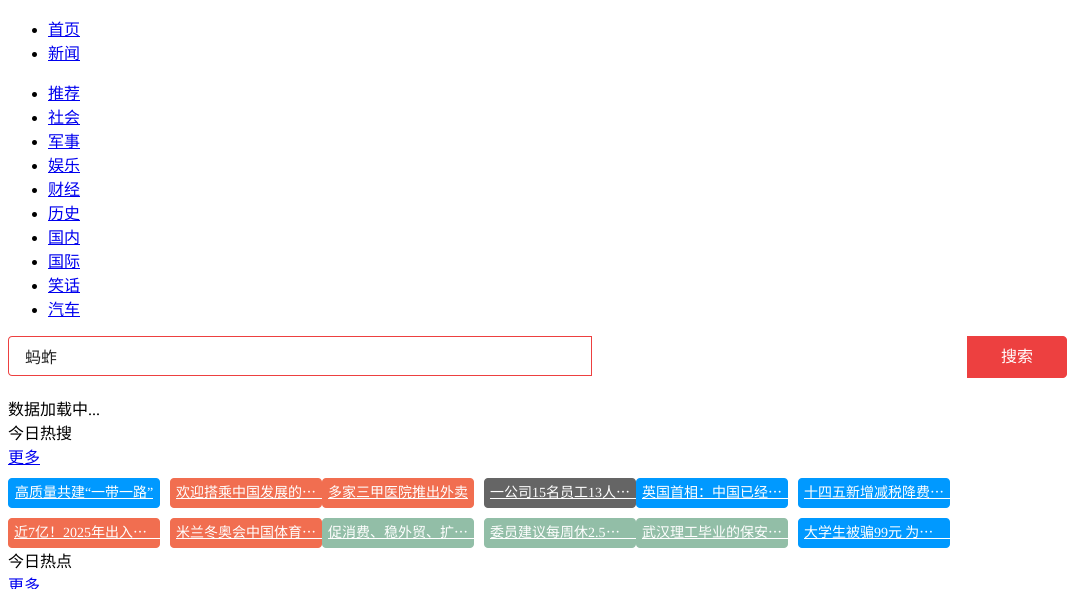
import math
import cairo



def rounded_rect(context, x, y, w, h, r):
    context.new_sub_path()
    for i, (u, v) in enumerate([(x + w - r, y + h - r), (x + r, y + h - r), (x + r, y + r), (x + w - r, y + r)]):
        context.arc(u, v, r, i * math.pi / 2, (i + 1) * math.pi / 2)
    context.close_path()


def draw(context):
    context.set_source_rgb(1, 1, 1)
    context.paint()
    context.set_source_rgb(0, 0, 0)
    context.arc(34.5, 30.5, 2.5, 0, 2 * math.pi)
    context.fill()
    context.set_source_rgb(0, 0, 238 / 255)
    context.rectangle(48, 36, 32, 1)
    context.fill()
    context.set_source_rgb(0, 0, 0)
    context.arc(34.5, 54.5, 2.5, 0, 2 * math.pi)
    context.fill()
    context.set_source_rgb(0, 0, 238 / 255)
    context.rectangle(48, 60, 32, 1)
    context.fill()
    context.set_source_rgb(0, 0, 0)
    context.arc(34.5, 94.5, 2.5, 0, 2 * math.pi)
    context.fill()
    context.set_source_rgb(0, 0, 238 / 255)
    context.rectangle(48, 100, 32, 1)
    context.fill()
    context.set_source_rgb(0, 0, 0)
    context.arc(34.5, 118.5, 2.5, 0, 2 * math.pi)
    context.fill()
    context.set_source_rgb(0, 0, 238 / 255)
    context.rectangle(48, 124, 32, 1)
    context.fill()
    context.set_source_rgb(0, 0, 0)
    context.arc(34.5, 142.5, 2.5, 0, 2 * math.pi)
    context.fill()
    context.set_source_rgb(0, 0, 238 / 255)
    context.rectangle(48, 148, 32, 1)
    context.fill()
    context.set_source_rgb(0, 0, 0)
    context.arc(34.5, 166.5, 2.5, 0, 2 * math.pi)
    context.fill()
    context.set_source_rgb(0, 0, 238 / 255)
    context.rectangle(48, 172, 32, 1)
    context.fill()
    context.set_source_rgb(0, 0, 0)
    context.arc(34.5, 190.5, 2.5, 0, 2 * math.pi)
    context.fill()
    context.set_source_rgb(0, 0, 238 / 255)
    context.rectangle(48, 196, 32, 1)
    context.fill()
    context.set_source_rgb(0, 0, 0)
    context.arc(34.5, 214.5, 2.5, 0, 2 * math.pi)
    context.fill()
    context.set_source_rgb(0, 0, 238 / 255)
    context.rectangle(48, 220, 32, 1)
    context.fill()
    context.set_source_rgb(0, 0, 0)
    context.arc(34.5, 238.5, 2.5, 0, 2 * math.pi)
    context.fill()
    context.set_source_rgb(0, 0, 238 / 255)
    context.rectangle(48, 244, 32, 1)
    context.fill()
    context.set_source_rgb(0, 0, 0)
    context.arc(34.5, 262.5, 2.5, 0, 2 * math.pi)
    context.fill()
    context.set_source_rgb(0, 0, 238 / 255)
    context.rectangle(48, 268, 32, 1)
    context.fill()
    context.set_source_rgb(0, 0, 0)
    context.arc(34.5, 286.5, 2.5, 0, 2 * math.pi)
    context.fill()
    context.set_source_rgb(0, 0, 238 / 255)
    context.rectangle(48, 292, 32, 1)
    context.fill()
    context.set_source_rgb(0, 0, 0)
    context.arc(34.5, 310.5, 2.5, 0, 2 * math.pi)
    context.fill()
    context.set_source_rgb(0, 0, 238 / 255)
    context.rectangle(48, 316, 32, 1)
    context.fill()
    context.new_path()
    context.move_to(12, 336.5)
    context.line_to(591.5, 336.5)
    context.line_to(591.5, 375.5)
    context.line_to(12, 375.5)
    context.curve_to(10, 375.5, 8.5, 374, 8.5, 372)
    context.line_to(8.5, 340)
    context.curve_to(8.5, 338, 10, 336.5, 12, 336.5)
    context.close_path()
    context.set_source_rgb(237 / 255, 64 / 255, 64 / 255)
    context.set_line_width(1)
    context.stroke()
    context.new_path()
    context.move_to(967, 336)
    context.line_to(1063, 336)
    context.curve_to(1065, 336, 1067, 338, 1067, 340)
    context.line_to(1067, 374)
    context.curve_to(1067, 376, 1065, 378, 1063, 378)
    context.line_to(967, 378)
    context.close_path()
    context.fill()
    context.set_source_rgb(0, 0, 238 / 255)
    context.rectangle(8, 464, 32, 1)
    context.fill()
    context.set_source_rgb(0, 153 / 255, 1)
    rounded_rect(context, 8, 478, 152, 30, 4)
    context.fill()
    context.set_source_rgb(1, 1, 1)
    context.rectangle(15, 498, 138, 1)
    context.fill()
    context.set_source_rgb(241 / 255, 110 / 255, 80 / 255)
    rounded_rect(context, 170, 478, 152, 30, 4)
    context.fill()
    context.set_source_rgb(1, 1, 1)
    context.rectangle(176, 498, 146, 1)
    context.fill()
    context.set_source_rgb(241 / 255, 110 / 255, 80 / 255)
    rounded_rect(context, 322, 478, 152, 30, 4)
    context.fill()
    context.set_source_rgb(1, 1, 1)
    context.rectangle(328, 498, 140, 1)
    context.fill()
    context.set_source_rgb(101 / 255, 101 / 255, 101 / 255)
    rounded_rect(context, 484, 478, 152, 30, 4)
    context.fill()
    context.set_source_rgb(1, 1, 1)
    context.rectangle(490, 498, 146, 1)
    context.fill()
    context.set_source_rgb(0, 153 / 255, 1)
    rounded_rect(context, 636, 478, 152, 30, 4)
    context.fill()
    context.set_source_rgb(1, 1, 1)
    context.rectangle(642, 498, 146, 1)
    context.fill()
    context.set_source_rgb(0, 153 / 255, 1)
    rounded_rect(context, 798, 478, 152, 30, 4)
    context.fill()
    context.set_source_rgb(1, 1, 1)
    context.rectangle(804, 498, 146, 1)
    context.fill()
    context.set_source_rgb(241 / 255, 110 / 255, 80 / 255)
    rounded_rect(context, 8, 518, 152, 30, 4)
    context.fill()
    context.set_source_rgb(1, 1, 1)
    context.rectangle(14, 538, 146, 1)
    context.fill()
    context.set_source_rgb(241 / 255, 110 / 255, 80 / 255)
    rounded_rect(context, 170, 518, 152, 30, 4)
    context.fill()
    context.set_source_rgb(1, 1, 1)
    context.rectangle(176, 538, 146, 1)
    context.fill()
    context.set_source_rgb(146 / 255, 190 / 255, 167 / 255)
    rounded_rect(context, 322, 518, 152, 30, 4)
    context.fill()
    context.set_source_rgb(1, 1, 1)
    context.rectangle(328, 538, 146, 1)
    context.fill()
    context.set_source_rgb(146 / 255, 190 / 255, 167 / 255)
    rounded_rect(context, 484, 518, 152, 30, 4)
    context.fill()
    context.set_source_rgb(1, 1, 1)
    context.rectangle(490, 538, 146, 1)
    context.fill()
    context.set_source_rgb(146 / 255, 190 / 255, 167 / 255)
    rounded_rect(context, 636, 518, 152, 30, 4)
    context.fill()
    context.set_source_rgb(1, 1, 1)
    context.rectangle(642, 538, 146, 1)
    context.fill()
    context.set_source_rgb(0, 153 / 255, 1)
    rounded_rect(context, 798, 518, 152, 30, 4)
    context.fill()
    context.set_source_rgb(1, 1, 1)
    context.rectangle(804, 538, 146, 1)
    context.fill()
    context.select_font_face("Noto Sans CJK SC")
    context.set_font_size(16)
    context.set_source_rgb(0, 0, 238 / 255)
    context.move_to(48, 35)
    context.show_text("首页")
    context.move_to(48, 59)
    context.show_text("新闻")
    context.move_to(48, 99)
    context.show_text("推荐")
    context.move_to(48, 123)
    context.show_text("社会")
    context.move_to(48, 147)
    context.show_text("军事")
    context.move_to(48, 171)
    context.show_text("娱乐")
    context.move_to(48, 195)
    context.show_text("财经")
    context.move_to(48, 219)
    context.show_text("历史")
    context.move_to(48, 243)
    context.show_text("国内")
    context.move_to(48, 267)
    context.show_text("国际")
    context.move_to(48, 291)
    context.show_text("笑话")
    context.move_to(48, 315)
    context.show_text("汽车")
    context.set_source_rgb(34 / 255, 34 / 255, 34 / 255)
    context.move_to(25, 363)
    context.show_text("蚂蚱")
    context.set_source_rgb(1, 1, 1)
    context.move_to(1001, 362)
    context.show_text("搜索")
    context.set_source_rgb(0, 0, 0)
    context.move_to(8, 415)
    context.show_text("数据加载中")
    context.select_font_face("Liberation Serif")
    context.move_to(88, 415)
    context.show_text("...")
    context.select_font_face("Noto Sans CJK SC")
    context.move_to(8, 439)
    context.show_text("今日热搜")
    context.set_source_rgb(0, 0, 238 / 255)
    context.move_to(8, 463)
    context.show_text("更多")
    context.set_font_size(14)
    context.set_source_rgb(1, 1, 1)
    context.move_to(15, 497)
    context.show_text("高质量共建")
    context.select_font_face("Liberation Serif")
    context.move_to(85, 497)
    context.show_text("“")
    context.select_font_face("Noto Sans CJK SC")
    context.move_to(91, 497)
    context.show_text("一带一路")
    context.select_font_face("Liberation Serif")
    context.move_to(147, 497)
    context.show_text("”")
    context.select_font_face("Noto Sans CJK SC")
    context.move_to(176, 497)
    context.show_text("欢迎搭乘中国发展的…")
    context.move_to(328, 497)
    context.show_text("多家三甲医院推出外卖")
    context.move_to(490, 497)
    context.show_text("一公司")
    context.select_font_face("Liberation Serif")
    context.move_to(532, 497)
    context.show_text("15")
    context.select_font_face("Noto Sans CJK SC")
    context.move_to(546, 497)
    context.show_text("名员工")
    context.select_font_face("Liberation Serif")
    context.move_to(588, 497)
    context.show_text("13")
    context.select_font_face("Noto Sans CJK SC")
    context.move_to(602, 497)
    context.show_text("人…")
    context.move_to(642, 497)
    context.show_text("英国首相：中国已经…")
    context.move_to(804, 497)
    context.show_text("十四五新增减税降费…")
    context.move_to(14, 537)
    context.show_text("近")
    context.select_font_face("Liberation Serif")
    context.move_to(28, 537)
    context.show_text("7")
    context.select_font_face("Noto Sans CJK SC")
    context.move_to(35, 537)
    context.show_text("亿！")
    context.select_font_face("Liberation Serif")
    context.move_to(63, 537)
    context.show_text("2025")
    context.select_font_face("Noto Sans CJK SC")
    context.move_to(91, 537)
    context.show_text("年出入…")
    context.move_to(176, 537)
    context.show_text("米兰冬奥会中国体育…")
    context.move_to(328, 537)
    context.show_text("促消费、稳外贸、扩…")
    context.move_to(490, 537)
    context.show_text("委员建议每周休")
    context.select_font_face("Liberation Serif")
    context.move_to(588, 537)
    context.show_text("2.5")
    context.select_font_face("Noto Sans CJK SC")
    context.move_to(606, 537)
    context.show_text("…")
    context.move_to(642, 537)
    context.show_text("武汉理工毕业的保安…")
    context.move_to(804, 537)
    context.show_text("大学生被骗")
    context.select_font_face("Liberation Serif")
    context.move_to(874, 537)
    context.show_text("99")
    context.select_font_face("Noto Sans CJK SC")
    context.move_to(888, 537)
    context.show_text("元 为…")
    context.set_font_size(16)
    context.set_source_rgb(0, 0, 0)
    context.move_to(8, 567)
    context.show_text("今日热点")
    context.set_source_rgb(0, 0, 238 / 255)
    context.move_to(8, 591)
    context.show_text("更多")


surface = cairo.ImageSurface(cairo.Format.RGB24, 1075, 589)
context = cairo.Context(surface)
options = cairo.FontOptions()
options.set_hint_metrics(cairo.HintMetrics.OFF)
options.set_hint_style(cairo.HintStyle.NONE)
context.set_font_options(options)
context.set_miter_limit(4)
draw(context)
surface.write_to_png("out.png")
